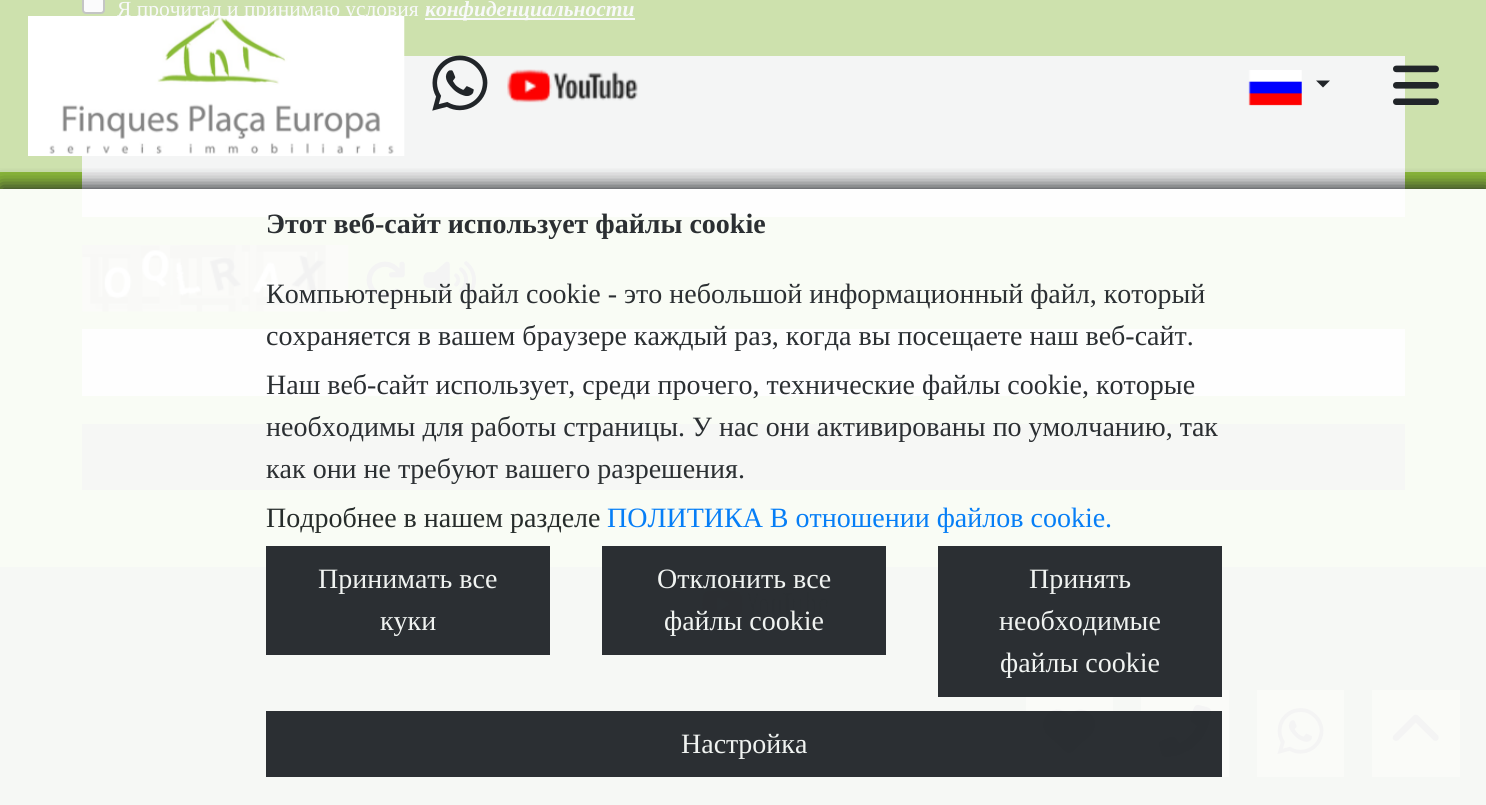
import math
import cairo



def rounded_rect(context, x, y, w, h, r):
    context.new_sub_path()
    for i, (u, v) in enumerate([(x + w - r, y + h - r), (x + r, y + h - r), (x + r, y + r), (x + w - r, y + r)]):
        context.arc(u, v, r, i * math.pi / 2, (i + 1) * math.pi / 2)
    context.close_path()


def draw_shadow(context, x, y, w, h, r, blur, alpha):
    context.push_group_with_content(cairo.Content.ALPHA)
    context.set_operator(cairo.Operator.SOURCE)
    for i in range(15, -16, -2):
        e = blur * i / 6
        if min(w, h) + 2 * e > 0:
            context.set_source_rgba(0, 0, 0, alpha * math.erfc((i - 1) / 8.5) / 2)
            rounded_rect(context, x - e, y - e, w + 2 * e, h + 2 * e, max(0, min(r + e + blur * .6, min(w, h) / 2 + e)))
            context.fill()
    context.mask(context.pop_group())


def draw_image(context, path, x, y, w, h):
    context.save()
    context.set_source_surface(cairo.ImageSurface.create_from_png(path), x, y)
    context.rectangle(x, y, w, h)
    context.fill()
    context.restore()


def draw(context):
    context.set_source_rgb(141 / 255, 188 / 255, 58 / 255)
    context.paint()
    context.set_source_rgb(249 / 255, 252 / 255, 245 / 255)
    context.rectangle(0, 189, 1486, 378)
    context.fill()
    context.set_source_rgb(205 / 255, 225 / 255, 173 / 255)
    context.rectangle(0, 0, 1486, 172)
    context.fill()
    context.set_source_rgb(251 / 255, 251 / 255, 252 / 255)
    rounded_rect(context, 83, -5, 21, 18, 3)
    context.fill_preserve()
    context.set_source_rgb(196 / 255, 197 / 255, 197 / 255)
    context.stroke()
    context.set_source_rgb(248 / 255, 249 / 255, 250 / 255)
    context.rectangle(425, 18, 210, 2)
    context.fill()
    context.set_source_rgb(238 / 255, 238 / 255, 238 / 255)
    context.rectangle(82, 172, 1323, 17)
    context.fill()
    context.set_source_rgb(254 / 255, 254 / 255, 254 / 255)
    context.rectangle(82, 189, 1323, 28)
    context.fill()
    context.set_source_rgb(244 / 255, 245 / 255, 245 / 255)
    context.rectangle(82, 56, 1323, 116)
    context.fill()
    draw_image(context, "images/1.png", 82, 245, 267, 67)
    draw_image(context, "images/2.png", 366, 261, 39, 38)
    draw_image(context, "images/3.png", 423, 261, 53, 38)
    context.set_source_rgb(254 / 255, 254 / 255, 254 / 255)
    context.rectangle(82, 329, 1323, 67)
    context.fill()
    context.set_source_rgb(246 / 255, 247 / 255, 245 / 255)
    context.rectangle(82, 424, 1323, 66)
    context.fill()
    context.set_source_rgb(246 / 255, 248 / 255, 245 / 255)
    context.rectangle(0, 567, 1486, 238)
    context.fill()
    draw_image(context, "images/4.png", 652, 599, 28, 28)
    draw_image(context, "images/5.png", 699, 587, 131, 33)
    draw_image(context, "images/7.png", 432, 55, 56, 56)
    draw_image(context, "images/8.png", 507, 69, 131, 34)
    draw_image(context, "images/9.png", 1248, 70, 54, 36)
    context.set_source_rgb(33 / 255, 37 / 255, 41 / 255)
    context.new_path()
    context.move_to(1316, 80.5)
    context.line_to(1330, 80.5)
    context.line_to(1323, 87.5)
    context.close_path()
    context.fill()
    draw_image(context, "images/10.png", 1393, 65, 46, 40)
    context.set_source_rgb(250 / 255, 251 / 255, 248 / 255)
    context.rectangle(1026, 690, 87, 87)
    context.fill()
    context.set_source_rgb(244 / 255, 244 / 255, 244 / 255)
    context.new_path()
    context.move_to(1048, 736)
    context.line_to(1066, 753)
    context.line_to(1048, 736)
    context.line_to(1063, 750)
    context.curve_to(1069, 755, 1070, 755, 1075, 750)
    context.line_to(1081, 744)
    context.curve_to(1086, 740, 1092, 736, 1094, 731)
    context.curve_to(1101, 715, 1082, 702, 1069, 715)
    context.curve_to(1053, 699, 1033, 722, 1048, 736)
    context.close_path()
    context.fill()
    context.set_source_rgb(250 / 255, 251 / 255, 248 / 255)
    context.rectangle(1141, 690, 88, 87)
    context.fill()
    draw_image(context, "images/11.png", 1158, 704, 53, 54)
    context.rectangle(1257, 690, 87, 87)
    context.fill()
    draw_image(context, "images/12.png", 1277, 708, 47, 46)
    context.rectangle(1372, 690, 88, 87)
    context.fill()
    draw_image(context, "images/13.png", 1392, 714, 47, 27)
    context.save()
    context.rectangle(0, 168, 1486, 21)
    context.clip()
    context.set_source_rgb(33 / 255, 37 / 255, 41 / 255)
    draw_shadow(context, 0, 186, 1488, 616, 0, 9, 0.95)
    context.restore()
    context.set_source_rgba(33 / 255, 37 / 255, 41 / 255, 0.95)
    context.rectangle(266, 546, 284, 109)
    context.fill()
    context.rectangle(602, 546, 284, 109)
    context.fill()
    context.rectangle(938, 546, 284, 151)
    context.fill()
    context.rectangle(266, 711, 956, 66)
    context.fill()
    context.select_font_face("Liberation Serif")
    context.set_font_size(21.5)
    context.set_source_rgb(248 / 255, 249 / 255, 250 / 255)
    context.move_to(117, 16)
    context.show_text("Я прочитал и принимаю условия")
    context.select_font_face("Liberation Serif", cairo.FontSlant.ITALIC, cairo.FontWeight.BOLD)
    context.move_to(425, 16)
    context.show_text("конфиденциальности")
    draw_image(context, "images/6.png", 28, 16, 377, 140)
    context.select_font_face("Liberation Serif", cairo.FontSlant.NORMAL, cairo.FontWeight.BOLD)
    context.set_font_size(28)
    context.set_source_rgb(43 / 255, 47 / 255, 50 / 255)
    context.move_to(266, 233)
    context.show_text("Этот веб-сайт использует файлы cookie")
    context.select_font_face("Liberation Serif")
    context.move_to(266, 303)
    context.show_text("Компьютерный файл cookie - это небольшой информационный файл, который")
    context.move_to(266, 345)
    context.show_text("сохраняется в вашем браузере каждый раз, когда вы посещаете наш веб-сайт.")
    context.move_to(266, 394)
    context.show_text("Наш веб-сайт использует, среди прочего, технические файлы cookie, которые")
    context.move_to(266, 436)
    context.show_text("необходимы для работы страницы. У нас они активированы по умолчанию, так")
    context.move_to(266, 478)
    context.show_text("как они не требуют вашего разрешения.")
    context.set_source_rgb(38 / 255, 44 / 255, 42 / 255)
    context.move_to(266, 527)
    context.show_text("Подробнее в нашем разделе")
    context.set_source_rgb(6 / 255, 126 / 255, 246 / 255)
    context.move_to(607, 527)
    context.show_text("ПОЛИТИКА В отношении файлов cookie.")
    context.set_source_rgb(240 / 255, 243 / 255, 241 / 255)
    context.move_to(318, 588)
    context.show_text("Принимать все")
    context.move_to(380, 630)
    context.show_text("куки")
    context.move_to(657, 588)
    context.show_text("Отклонить все")
    context.move_to(664, 630)
    context.show_text("файлы cookie")
    context.move_to(1029, 588)
    context.show_text("Принять")
    context.move_to(999, 630)
    context.show_text("необходимые")
    context.move_to(1000, 672)
    context.show_text("файлы cookie")
    context.move_to(681, 753)
    context.show_text("Настройка")


surface = cairo.ImageSurface(cairo.Format.RGB24, 1486, 805)
context = cairo.Context(surface)
options = cairo.FontOptions()
options.set_hint_metrics(cairo.HintMetrics.OFF)
options.set_hint_style(cairo.HintStyle.NONE)
context.set_font_options(options)
context.set_miter_limit(4)
draw(context)
surface.write_to_png("out.png")
